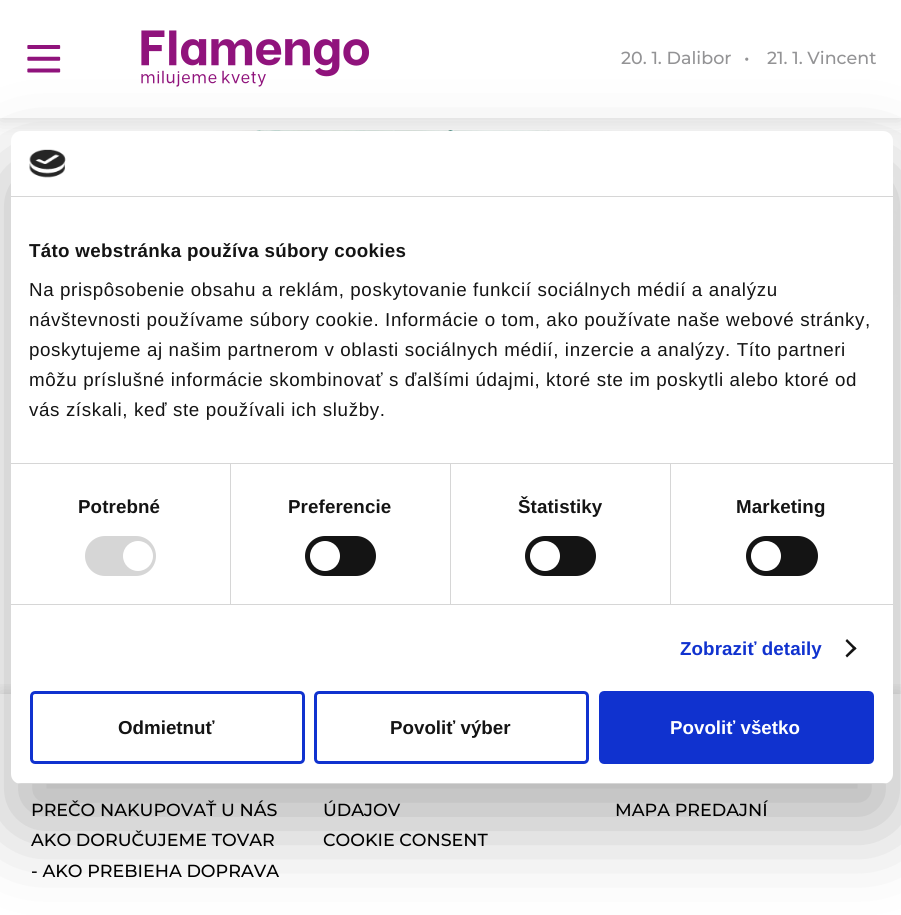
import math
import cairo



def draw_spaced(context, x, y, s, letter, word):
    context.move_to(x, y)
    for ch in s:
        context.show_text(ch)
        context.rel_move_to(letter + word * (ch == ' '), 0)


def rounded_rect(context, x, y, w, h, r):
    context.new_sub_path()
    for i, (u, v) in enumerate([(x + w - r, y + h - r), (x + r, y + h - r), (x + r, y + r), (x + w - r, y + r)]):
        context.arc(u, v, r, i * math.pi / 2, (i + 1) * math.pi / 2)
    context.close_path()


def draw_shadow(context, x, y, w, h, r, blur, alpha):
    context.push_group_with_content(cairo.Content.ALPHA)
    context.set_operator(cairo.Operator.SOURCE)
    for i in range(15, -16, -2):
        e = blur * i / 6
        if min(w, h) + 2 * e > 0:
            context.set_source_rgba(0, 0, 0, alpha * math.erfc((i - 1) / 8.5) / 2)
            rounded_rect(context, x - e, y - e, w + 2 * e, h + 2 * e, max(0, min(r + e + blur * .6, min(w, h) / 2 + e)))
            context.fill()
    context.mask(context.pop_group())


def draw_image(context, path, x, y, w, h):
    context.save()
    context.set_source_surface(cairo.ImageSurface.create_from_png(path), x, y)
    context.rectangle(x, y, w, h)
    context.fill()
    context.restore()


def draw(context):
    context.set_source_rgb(1, 1, 1)
    context.paint()
    draw_image(context, "images/3.png", 88, 130, 813, 455)
    context.set_source_rgb(0, 0, 0)
    draw_shadow(context, 0, 0, 901, 118, 0, 9.5, 0.15)
    context.set_source_rgb(1, 1, 1)
    context.rectangle(0, 0, 901, 118)
    context.fill()
    draw_image(context, "images/1.png", 27, 45, 34, 28)
    draw_image(context, "images/2.png", 141, 30, 229, 57)
    context.save()
    context.rectangle(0, 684, 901, 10)
    context.clip()
    context.set_source_rgb(0, 0, 0)
    draw_shadow(context, 0, 694, 901, 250, 0, 9.5, 0.15)
    context.restore()
    context.set_source_rgb(0, 0, 0)
    draw_shadow(context, 11, 171, 882, 653, 10, 42.5, 0.3)
    context.set_source_rgb(1, 1, 1)
    rounded_rect(context, 11, 131, 882, 653, 10)
    context.fill()
    context.set_source_rgb(214 / 255, 214 / 255, 214 / 255)
    context.rectangle(11, 196, 882, 1)
    context.fill()
    draw_image(context, "images/4.png", 29, 149, 37, 29)
    context.rectangle(11, 463, 882, 1)
    context.fill()
    context.rectangle(11, 604, 882, 1)
    context.fill()
    context.rectangle(230, 464, 1, 140)
    context.fill()
    rounded_rect(context, 85, 536, 71, 40, 20)
    context.fill()
    context.set_source_rgb(1, 1, 1)
    context.arc(138, 556, 15, 0, 2 * math.pi)
    context.fill()
    context.set_source_rgb(214 / 255, 214 / 255, 214 / 255)
    context.rectangle(450, 464, 1, 140)
    context.fill()
    context.set_source_rgb(20 / 255, 20 / 255, 20 / 255)
    rounded_rect(context, 305, 536, 71, 40, 20)
    context.fill()
    context.set_source_rgb(1, 1, 1)
    context.arc(325, 556, 15, 0, 2 * math.pi)
    context.fill()
    context.set_source_rgb(214 / 255, 214 / 255, 214 / 255)
    context.rectangle(670, 464, 1, 140)
    context.fill()
    context.set_source_rgb(20 / 255, 20 / 255, 20 / 255)
    rounded_rect(context, 525, 536, 71, 40, 20)
    context.fill()
    context.set_source_rgb(1, 1, 1)
    context.arc(545, 556, 15, 0, 2 * math.pi)
    context.fill()
    context.set_source_rgb(20 / 255, 20 / 255, 20 / 255)
    rounded_rect(context, 746, 536, 72, 40, 20)
    context.fill()
    context.set_source_rgb(1, 1, 1)
    context.arc(766, 556, 15, 0, 2 * math.pi)
    context.fill()
    context.set_source_rgb(20 / 255, 20 / 255, 20 / 255)
    context.new_path()
    context.move_to(847, 639)
    context.line_to(856.5, 648.5)
    context.line_to(854.5, 650)
    context.line_to(845.5, 641)
    context.close_path()
    context.fill()
    context.new_path()
    context.move_to(854.5, 646.5)
    context.line_to(856.5, 648.5)
    context.line_to(847, 657.5)
    context.line_to(845.5, 655.5)
    context.close_path()
    context.fill()
    context.save()
    rounded_rect(context, 11, 131, 882, 653, 10)
    context.clip()
    context.set_source_rgb(214 / 255, 214 / 255, 214 / 255)
    context.rectangle(11, 783, 882, 1)
    context.fill()
    context.restore()
    rounded_rect(context, 31.5, 692.5, 272, 70, 3.5)
    context.set_source_rgb(16 / 255, 50 / 255, 207 / 255)
    context.set_line_width(3)
    context.stroke()
    rounded_rect(context, 315.5, 692.5, 272, 70, 3.5)
    context.stroke()
    rounded_rect(context, 600.5, 692.5, 272, 70, 3.5)
    context.fill_preserve()
    context.stroke()
    context.select_font_face("Montserrat Medium")
    context.set_font_size(17.5)
    context.set_source_rgb(147 / 255, 147 / 255, 149 / 255)
    context.move_to(621, 64)
    context.show_text("20. 1. Dalibor")
    context.move_to(744, 64)
    context.show_text("•")
    context.move_to(767, 64)
    context.show_text("21. 1. Vincent")
    context.set_source_rgb(0, 0, 0)
    context.move_to(31, 816)
    context.show_text("PREČO NAKUPOVAŤ U NÁS")
    context.move_to(31, 846)
    context.show_text("AKO DORUČUJEME TOVAR")
    context.move_to(31, 877)
    context.show_text("- AKO PREBIEHA DOPRAVA")
    context.move_to(323, 816)
    context.show_text("ÚDAJOV")
    context.move_to(323, 846)
    context.show_text("COOKIE CONSENT")
    context.move_to(615, 816)
    context.show_text("MAPA PREDAJNÍ")
    context.select_font_face("Liberation Sans", cairo.FontSlant.NORMAL, cairo.FontWeight.BOLD)
    context.set_font_size(18.75)
    context.set_source_rgb(20 / 255, 20 / 255, 20 / 255)
    draw_spaced(context, 29, 257, "Táto webstránka používa súbory cookies", 0.3, 0)
    context.select_font_face("Liberation Sans")
    draw_spaced(context, 29, 296, "Na prispôsobenie obsahu a reklám, poskytovanie funkcií sociálnych médií a analýzu", 0.62, 0)
    draw_spaced(context, 29, 326, "návštevnosti používame súbory cookie. Informácie o tom, ako používate naše webové stránky,", 0.62, 0)
    draw_spaced(context, 29, 356, "poskytujeme aj našim partnerom v oblasti sociálnych médií, inzercie a analýzy. Títo partneri", 0.62, 0)
    draw_spaced(context, 29, 386, "môžu príslušné informácie skombinovať s ďalšími údajmi, ktoré ste im poskytli alebo ktoré od", 0.62, 0)
    draw_spaced(context, 29, 416, "vás získali, keď ste používali ich služby.", 0.62, 0)
    context.select_font_face("Liberation Sans", cairo.FontSlant.NORMAL, cairo.FontWeight.BOLD)
    draw_spaced(context, 78, 513, "Potrebné", 0.1, 0)
    draw_spaced(context, 288, 513, "Preferencie", 0.1, 0)
    draw_spaced(context, 518, 513, "Štatistiky", 0.1, 0)
    draw_spaced(context, 736, 513, "Marketing", 0.1, 0)
    context.set_source_rgb(16 / 255, 50 / 255, 207 / 255)
    draw_spaced(context, 680, 655, "Zobraziť detaily", 0.1, 0)
    context.set_source_rgb(20 / 255, 20 / 255, 20 / 255)
    context.move_to(118, 734)
    context.show_text("Odmietnuť")
    context.move_to(390, 734)
    context.show_text("Povoliť výber")
    context.set_source_rgb(1, 1, 1)
    context.move_to(670, 734)
    context.show_text("Povoliť všetko")


surface = cairo.ImageSurface(cairo.Format.RGB24, 901, 915)
context = cairo.Context(surface)
options = cairo.FontOptions()
options.set_hint_metrics(cairo.HintMetrics.OFF)
options.set_hint_style(cairo.HintStyle.NONE)
context.set_font_options(options)
context.set_miter_limit(4)
draw(context)
surface.write_to_png("out.png")
